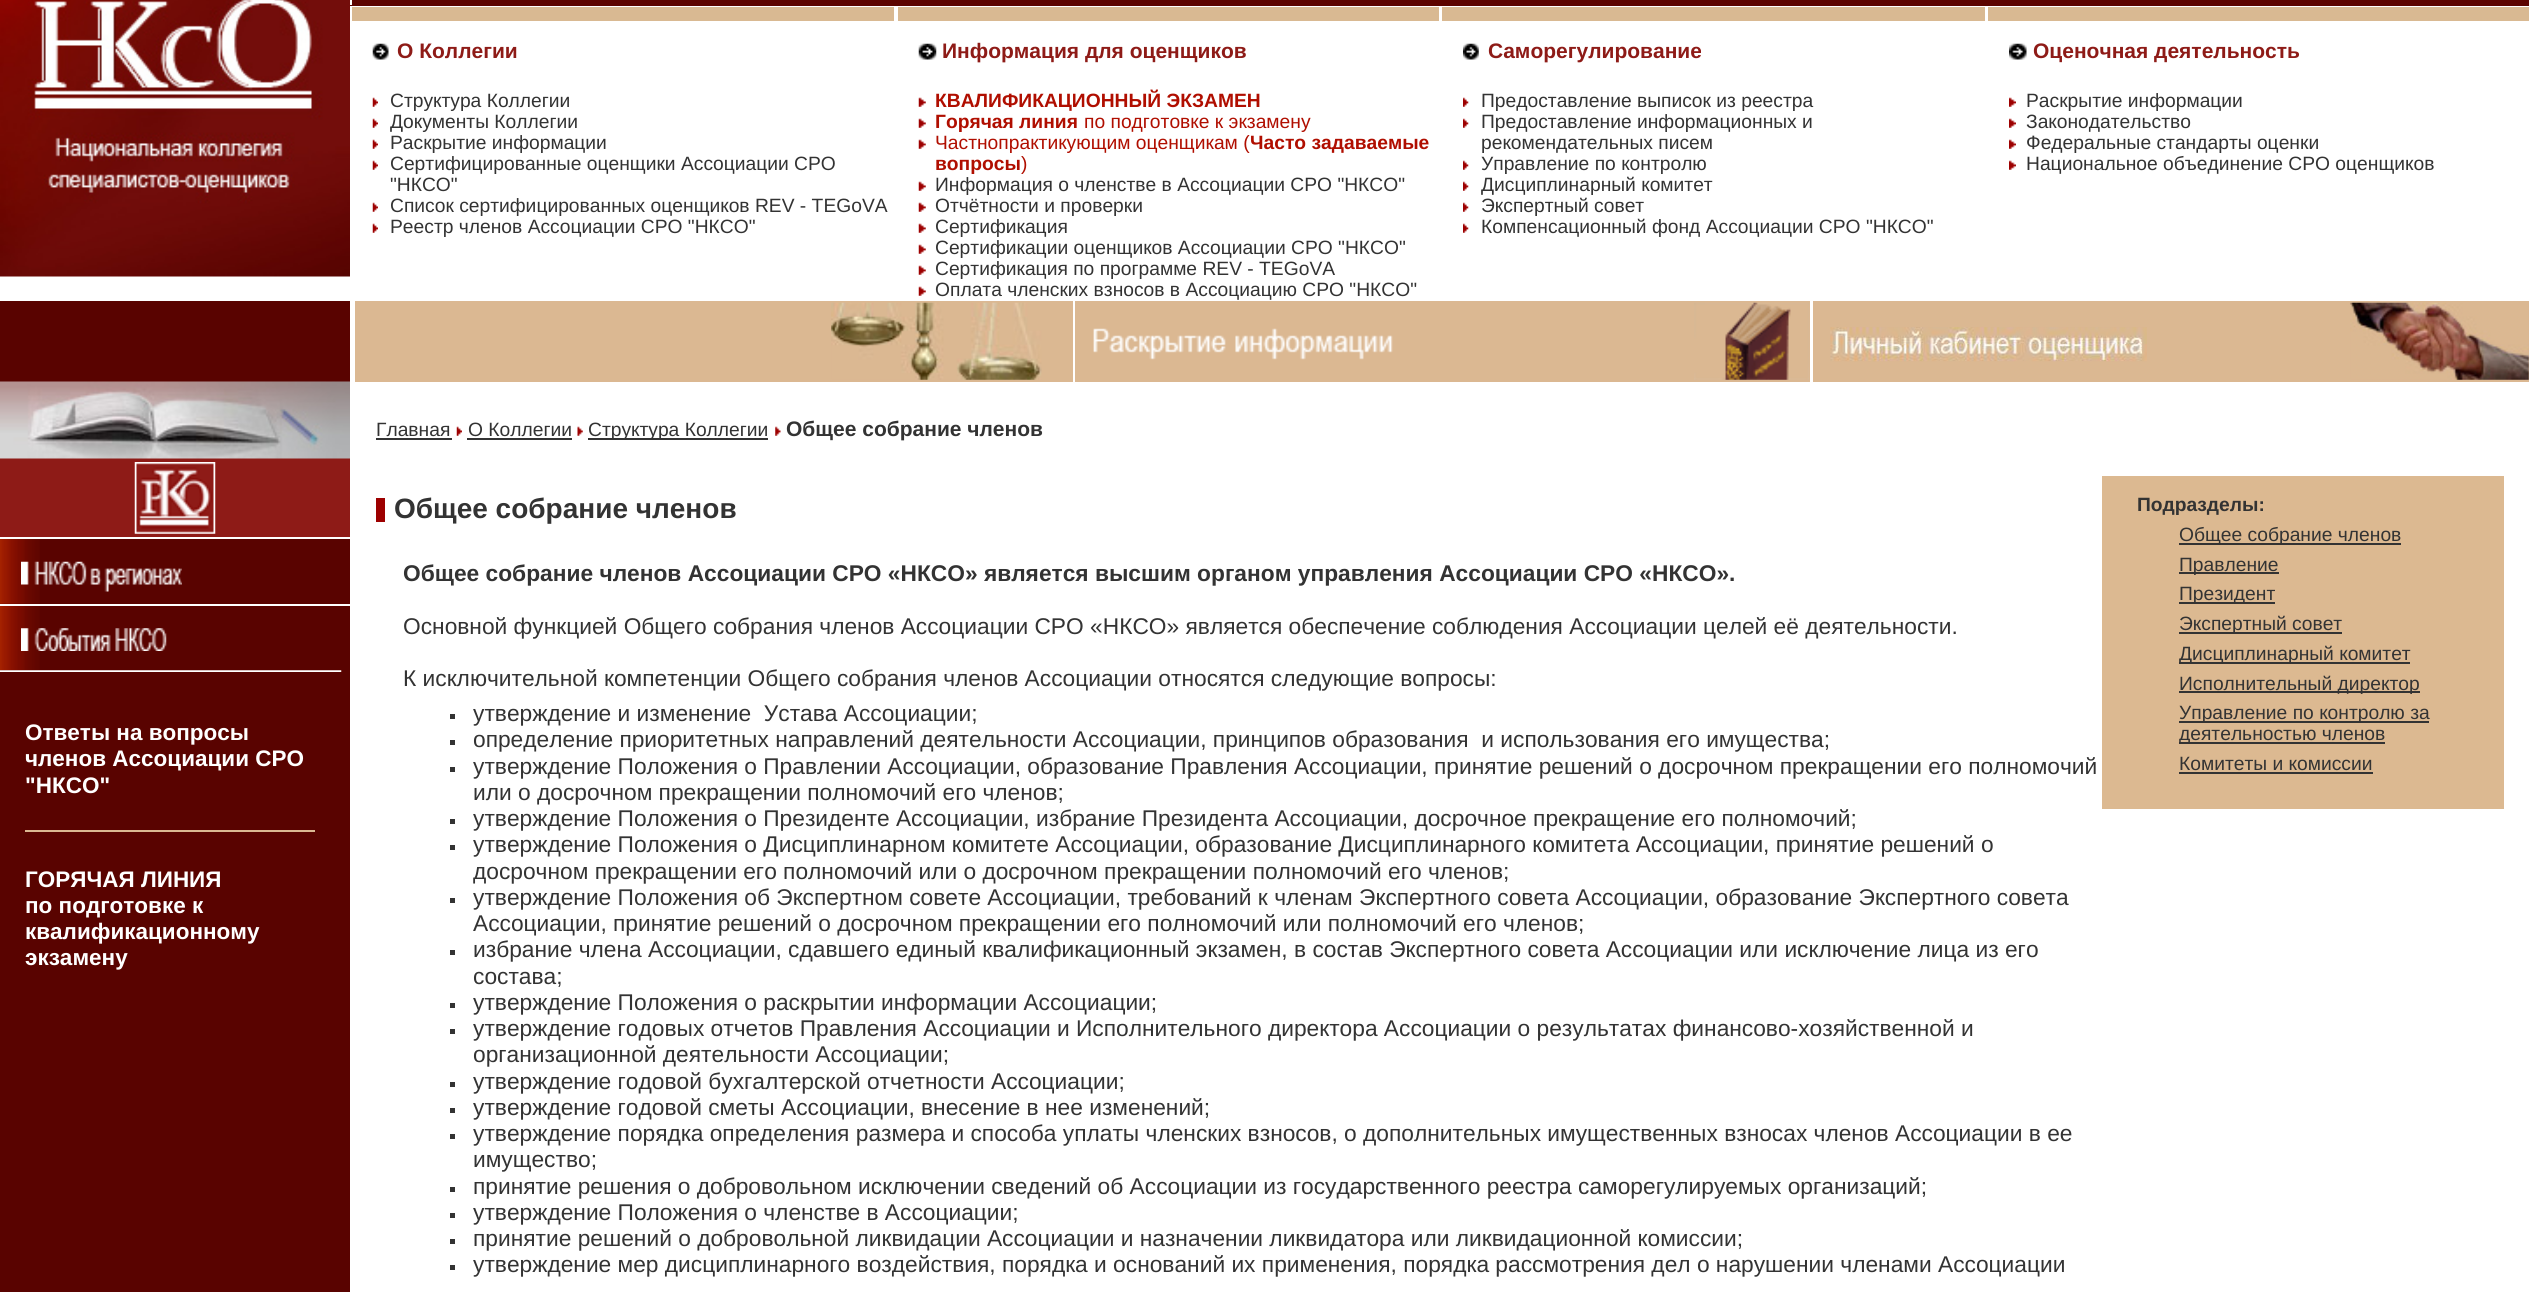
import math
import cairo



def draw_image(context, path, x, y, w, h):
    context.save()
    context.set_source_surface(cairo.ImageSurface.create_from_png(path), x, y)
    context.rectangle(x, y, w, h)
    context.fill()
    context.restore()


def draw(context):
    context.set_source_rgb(1, 1, 1)
    context.paint()
    draw_image(context, "images/1.png", 0, 0, 350, 277)
    context.set_source_rgb(93 / 255, 4 / 255, 0)
    context.rectangle(350, 0, 2179, 6)
    context.fill()
    context.set_source_rgb(1, 1, 1)
    context.rectangle(350, 0, 2, 5)
    context.fill()
    context.set_source_rgb(217 / 255, 185 / 255, 146 / 255)
    context.rectangle(352, 7, 542, 14)
    context.fill()
    draw_image(context, "images/2.png", 372, 43, 17, 17)
    draw_image(context, "images/3.png", 372, 97, 6, 10)
    draw_image(context, "images/3.png", 372, 118, 6, 10)
    draw_image(context, "images/4.png", 372, 139, 6, 10)
    draw_image(context, "images/3.png", 372, 160, 6, 10)
    draw_image(context, "images/3.png", 372, 202, 6, 10)
    draw_image(context, "images/3.png", 372, 223, 6, 10)
    context.rectangle(898, 7, 541, 14)
    context.fill()
    draw_image(context, "images/5.png", 918, 43, 19, 17)
    draw_image(context, "images/6.png", 918, 97, 8, 10)
    draw_image(context, "images/6.png", 918, 118, 8, 10)
    draw_image(context, "images/7.png", 918, 139, 8, 10)
    draw_image(context, "images/6.png", 918, 181, 8, 10)
    draw_image(context, "images/6.png", 918, 202, 8, 10)
    draw_image(context, "images/6.png", 918, 223, 8, 10)
    draw_image(context, "images/6.png", 918, 244, 8, 10)
    draw_image(context, "images/6.png", 918, 265, 8, 10)
    draw_image(context, "images/6.png", 918, 286, 8, 10)
    context.rectangle(1442, 7, 543, 14)
    context.fill()
    draw_image(context, "images/8.png", 1463, 43, 16, 17)
    draw_image(context, "images/9.png", 1463, 97, 6, 10)
    draw_image(context, "images/9.png", 1463, 118, 6, 10)
    draw_image(context, "images/9.png", 1463, 160, 6, 10)
    draw_image(context, "images/9.png", 1463, 181, 6, 10)
    draw_image(context, "images/9.png", 1463, 202, 6, 10)
    draw_image(context, "images/9.png", 1463, 223, 6, 10)
    context.rectangle(1988, 7, 541, 14)
    context.fill()
    draw_image(context, "images/10.png", 2009, 43, 18, 17)
    draw_image(context, "images/11.png", 2009, 97, 7, 10)
    draw_image(context, "images/11.png", 2009, 118, 7, 10)
    draw_image(context, "images/12.png", 2009, 139, 7, 10)
    draw_image(context, "images/11.png", 2009, 160, 7, 10)
    context.set_source_rgb(89 / 255, 3 / 255, 0)
    context.rectangle(0, 301, 350, 81)
    context.fill()
    context.set_source_rgb(219 / 255, 184 / 255, 146 / 255)
    context.rectangle(355, 301, 718, 81)
    context.fill()
    draw_image(context, "images/13.png", 831, 302, 211, 78)
    context.rectangle(1075, 301, 735, 81)
    context.fill()
    draw_image(context, "images/14.png", 1694, 302, 115, 78)
    draw_image(context, "images/15.png", 1093, 328, 300, 32)
    context.rectangle(1813, 301, 716, 81)
    context.fill()
    draw_image(context, "images/16.png", 2350, 302, 179, 78)
    draw_image(context, "images/17.png", 1830, 327, 317, 35)
    context.set_source_rgb(89 / 255, 3 / 255, 0)
    context.rectangle(0, 539, 350, 753)
    context.fill()
    context.set_source_rgb(142 / 255, 27 / 255, 23 / 255)
    context.rectangle(0, 458, 350, 79)
    context.fill()
    draw_image(context, "images/18.png", 0, 381, 350, 78)
    draw_image(context, "images/19.png", 134, 462, 82, 72)
    draw_image(context, "images/20.png", 0, 539, 40, 65)
    draw_image(context, "images/21.png", 21, 561, 161, 31)
    draw_image(context, "images/22.png", 0, 603, 40, 67)
    context.set_source_rgb(1, 1, 1)
    context.rectangle(0, 604, 350, 2)
    context.fill()
    draw_image(context, "images/23.png", 21, 628, 146, 23)
    draw_image(context, "images/24.png", 0, 670, 342, 2)
    context.set_source_rgb(219 / 255, 184 / 255, 146 / 255)
    context.rectangle(25, 830, 290, 2)
    context.fill()
    context.set_source_rgb(51 / 255, 51 / 255, 51 / 255)
    context.rectangle(376, 438, 76, 2)
    context.fill()
    draw_image(context, "images/3.png", 456, 426, 6, 10)
    context.rectangle(467, 438, 105, 2)
    context.fill()
    draw_image(context, "images/25.png", 577, 426, 6, 10)
    context.rectangle(588, 438, 180, 2)
    context.fill()
    draw_image(context, "images/26.png", 775, 426, 6, 10)
    context.set_source_rgb(157 / 255, 0, 0)
    context.rectangle(376, 498, 9, 24)
    context.fill()
    context.set_source_rgb(51 / 255, 51 / 255, 51 / 255)
    context.rectangle(450, 714, 5, 5)
    context.fill()
    context.rectangle(450, 740, 5, 5)
    context.fill()
    context.rectangle(450, 767, 5, 5)
    context.fill()
    context.rectangle(450, 819, 5, 5)
    context.fill()
    context.rectangle(450, 845, 5, 5)
    context.fill()
    context.rectangle(450, 898, 5, 5)
    context.fill()
    context.rectangle(450, 950, 5, 5)
    context.fill()
    context.rectangle(450, 1003, 5, 5)
    context.fill()
    context.rectangle(450, 1029, 5, 5)
    context.fill()
    context.rectangle(450, 1082, 5, 5)
    context.fill()
    context.rectangle(450, 1108, 5, 5)
    context.fill()
    context.rectangle(450, 1134, 5, 5)
    context.fill()
    context.rectangle(450, 1187, 5, 5)
    context.fill()
    context.rectangle(450, 1213, 5, 5)
    context.fill()
    context.rectangle(450, 1239, 5, 5)
    context.fill()
    context.rectangle(450, 1265, 5, 5)
    context.fill()
    context.set_source_rgb(220 / 255, 185 / 255, 145 / 255)
    context.rectangle(2102, 476, 402, 333)
    context.fill()
    context.set_source_rgb(51 / 255, 51 / 255, 51 / 255)
    context.rectangle(2179, 543, 222, 2)
    context.fill()
    context.rectangle(2179, 572, 100, 2)
    context.fill()
    context.rectangle(2179, 602, 96, 2)
    context.fill()
    context.rectangle(2179, 632, 163, 2)
    context.fill()
    context.rectangle(2179, 662, 231, 2)
    context.fill()
    context.rectangle(2179, 691, 241, 2)
    context.fill()
    context.rectangle(2179, 721, 250, 2)
    context.fill()
    context.rectangle(2179, 742, 206, 2)
    context.fill()
    context.rectangle(2179, 772, 194, 2)
    context.fill()
    context.select_font_face("Liberation Sans", cairo.FontSlant.NORMAL, cairo.FontWeight.BOLD)
    context.set_font_size(21)
    context.set_source_rgb(142 / 255, 27 / 255, 23 / 255)
    context.move_to(397, 58)
    context.show_text("О Коллегии")
    context.select_font_face("Liberation Sans")
    context.set_font_size(19.25)
    context.set_source_rgb(51 / 255, 51 / 255, 51 / 255)
    context.move_to(390, 107)
    context.show_text("Структура Коллегии")
    context.move_to(390, 128)
    context.show_text("Документы Коллегии")
    context.move_to(390, 149)
    context.show_text("Раскрытие информации")
    context.move_to(390, 170)
    context.show_text("Сертифицированные оценщики Ассоциации СРО")
    context.move_to(390, 191)
    context.show_text("\"НКСО\"")
    context.move_to(390, 212)
    context.show_text("Список сертифицированных оценщиков REV - TEGoVA")
    context.move_to(390, 233)
    context.show_text("Реестр членов Ассоциации СРО \"НКСО\"")
    context.select_font_face("Liberation Sans", cairo.FontSlant.NORMAL, cairo.FontWeight.BOLD)
    context.set_font_size(21)
    context.set_source_rgb(142 / 255, 27 / 255, 23 / 255)
    context.move_to(942, 58)
    context.show_text("Информация для оценщиков")
    context.set_font_size(19.25)
    context.set_source_rgb(176 / 255, 14 / 255, 0)
    context.move_to(935, 107)
    context.show_text("КВАЛИФИКАЦИОННЫЙ ЭКЗАМЕН")
    context.move_to(935, 128)
    context.show_text("Горячая линия")
    context.select_font_face("Liberation Sans")
    context.move_to(1084, 128)
    context.show_text("по подготовке к экзамену")
    context.move_to(935, 149)
    context.show_text("Частнопрактикующим оценщикам (")
    context.select_font_face("Liberation Sans", cairo.FontSlant.NORMAL, cairo.FontWeight.BOLD)
    context.move_to(1250, 149)
    context.show_text("Часто задаваемые")
    context.move_to(935, 170)
    context.show_text("вопросы")
    context.select_font_face("Liberation Sans")
    context.move_to(1021, 170)
    context.show_text(")")
    context.set_source_rgb(51 / 255, 51 / 255, 51 / 255)
    context.move_to(935, 191)
    context.show_text("Информация о членстве в Ассоциации СРО \"НКСО\"")
    context.move_to(935, 212)
    context.show_text("Отчётности и проверки")
    context.move_to(935, 233)
    context.show_text("Сертификация")
    context.move_to(935, 254)
    context.show_text("Сертификации оценщиков Ассоциации СРО \"НКСО\"")
    context.move_to(935, 275)
    context.show_text("Сертификация по программе REV - TEGoVA")
    context.move_to(935, 296)
    context.show_text("Оплата членских взносов в Ассоциацию СРО \"НКСО\"")
    context.select_font_face("Liberation Sans", cairo.FontSlant.NORMAL, cairo.FontWeight.BOLD)
    context.set_font_size(21)
    context.set_source_rgb(142 / 255, 27 / 255, 23 / 255)
    context.move_to(1488, 58)
    context.show_text("Саморегулирование")
    context.select_font_face("Liberation Sans")
    context.set_font_size(19.25)
    context.set_source_rgb(51 / 255, 51 / 255, 51 / 255)
    context.move_to(1481, 107)
    context.show_text("Предоставление выписок из реестра")
    context.move_to(1481, 128)
    context.show_text("Предоставление информационных и")
    context.move_to(1481, 149)
    context.show_text("рекомендательных писем")
    context.move_to(1481, 170)
    context.show_text("Управление по контролю")
    context.move_to(1481, 191)
    context.show_text("Дисциплинарный комитет")
    context.move_to(1481, 212)
    context.show_text("Экспертный совет")
    context.move_to(1481, 233)
    context.show_text("Компенсационный фонд Ассоциации СРО \"НКСО\"")
    context.select_font_face("Liberation Sans", cairo.FontSlant.NORMAL, cairo.FontWeight.BOLD)
    context.set_font_size(21)
    context.set_source_rgb(142 / 255, 27 / 255, 23 / 255)
    context.move_to(2033, 58)
    context.show_text("Оценочная деятельность")
    context.select_font_face("Liberation Sans")
    context.set_font_size(19.25)
    context.set_source_rgb(51 / 255, 51 / 255, 51 / 255)
    context.move_to(2026, 107)
    context.show_text("Раскрытие информации")
    context.move_to(2026, 128)
    context.show_text("Законодательство")
    context.move_to(2026, 149)
    context.show_text("Федеральные стандарты оценки")
    context.move_to(2026, 170)
    context.show_text("Национальное объединение СРО оценщиков")
    context.select_font_face("Liberation Sans", cairo.FontSlant.NORMAL, cairo.FontWeight.BOLD)
    context.set_font_size(22.5)
    context.set_source_rgb(1, 1, 1)
    context.move_to(25, 740)
    context.show_text("Ответы на вопросы")
    context.move_to(25, 766)
    context.show_text("членов Ассоциации СРО")
    context.move_to(25, 793)
    context.show_text("\"НКСО\"")
    context.move_to(25, 887)
    context.show_text("ГОРЯЧАЯ ЛИНИЯ")
    context.move_to(25, 913)
    context.show_text("по подготовке к")
    context.move_to(25, 939)
    context.show_text("квалификационному")
    context.move_to(25, 965)
    context.show_text("экзамену")
    context.select_font_face("Liberation Sans")
    context.set_font_size(19.25)
    context.set_source_rgb(51 / 255, 51 / 255, 51 / 255)
    context.move_to(376, 436)
    context.show_text("Главная")
    context.move_to(468, 436)
    context.show_text("О Коллегии")
    context.move_to(588, 436)
    context.show_text("Структура Коллегии")
    context.select_font_face("Liberation Sans", cairo.FontSlant.NORMAL, cairo.FontWeight.BOLD)
    context.set_font_size(21)
    context.move_to(786, 436)
    context.show_text("Общее собрание членов")
    context.set_font_size(28)
    context.move_to(394, 518)
    context.show_text("Общее собрание членов")
    context.set_font_size(22.75)
    context.move_to(403, 581)
    context.show_text("Общее собрание членов Ассоциации СРО «НКСО» является высшим органом управления Ассоциации СРО «НКСО».")
    context.select_font_face("Liberation Sans")
    context.move_to(403, 634)
    context.show_text("Основной функцией Общего собрания членов Ассоциации СРО «НКСО» является обеспечение соблюдения Ассоциации целей её деятельности.")
    context.move_to(403, 686)
    context.show_text("К исключительной компетенции Общего собрания членов Ассоциации относятся следующие вопросы:")
    context.move_to(473, 721)
    context.show_text("утверждение и изменение  Устава Ассоциации;")
    context.move_to(473, 747)
    context.show_text("определение приоритетных направлений деятельности Ассоциации, принципов образования  и использования его имущества;")
    context.move_to(473, 774)
    context.show_text("утверждение Положения о Правлении Ассоциации, образование Правления Ассоциации, принятие решений о досрочном прекращении его полномочий")
    context.move_to(473, 800)
    context.show_text("или о досрочном прекращении полномочий его членов;")
    context.move_to(473, 826)
    context.show_text("утверждение Положения о Президенте Ассоциации, избрание Президента Ассоциации, досрочное прекращение его полномочий;")
    context.move_to(473, 852)
    context.show_text("утверждение Положения о Дисциплинарном комитете Ассоциации, образование Дисциплинарного комитета Ассоциации, принятие решений о")
    context.move_to(473, 879)
    context.show_text("досрочном прекращении его полномочий или о досрочном прекращении полномочий его членов;")
    context.move_to(473, 905)
    context.show_text("утверждение Положения об Экспертном совете Ассоциации, требований к членам Экспертного совета Ассоциации, образование Экспертного совета")
    context.move_to(473, 931)
    context.show_text("Ассоциации, принятие решений о досрочном прекращении его полномочий или полномочий его членов;")
    context.move_to(473, 957)
    context.show_text("избрание члена Ассоциации, сдавшего единый квалификационный экзамен, в состав Экспертного совета Ассоциации или исключение лица из его")
    context.move_to(473, 984)
    context.show_text("состава;")
    context.move_to(473, 1010)
    context.show_text("утверждение Положения о раскрытии информации Ассоциации;")
    context.move_to(473, 1036)
    context.show_text("утверждение годовых отчетов Правления Ассоциации и Исполнительного директора Ассоциации о результатах финансово-хозяйственной и")
    context.move_to(473, 1062)
    context.show_text("организационной деятельности Ассоциации;")
    context.move_to(473, 1089)
    context.show_text("утверждение годовой бухгалтерской отчетности Ассоциации;")
    context.move_to(473, 1115)
    context.show_text("утверждение годовой сметы Ассоциации, внесение в нее изменений;")
    context.move_to(473, 1141)
    context.show_text("утверждение порядка определения размера и способа уплаты членских взносов, о дополнительных имущественных взносах членов Ассоциации в ее")
    context.move_to(473, 1167)
    context.show_text("имущество;")
    context.move_to(473, 1194)
    context.show_text("принятие решения о добровольном исключении сведений об Ассоциации из государственного реестра саморегулируемых организаций;")
    context.move_to(473, 1220)
    context.show_text("утверждение Положения о членстве в Ассоциации;")
    context.move_to(473, 1246)
    context.show_text("принятие решений о добровольной ликвидации Ассоциации и назначении ликвидатора или ликвидационной комиссии;")
    context.move_to(473, 1272)
    context.show_text("утверждение мер дисциплинарного воздействия, порядка и оснований их применения, порядка рассмотрения дел о нарушении членами Ассоциации")
    context.select_font_face("Liberation Sans", cairo.FontSlant.NORMAL, cairo.FontWeight.BOLD)
    context.set_font_size(19.25)
    context.move_to(2137, 511)
    context.show_text("Подразделы:")
    context.select_font_face("Liberation Sans")
    context.move_to(2179, 541)
    context.show_text("Общее собрание членов")
    context.move_to(2179, 571)
    context.show_text("Правление")
    context.move_to(2179, 600)
    context.show_text("Президент")
    context.move_to(2179, 630)
    context.show_text("Экспертный совет")
    context.move_to(2179, 660)
    context.show_text("Дисциплинарный комитет")
    context.move_to(2179, 690)
    context.show_text("Исполнительный директор")
    context.move_to(2179, 719)
    context.show_text("Управление по контролю за")
    context.move_to(2179, 740)
    context.show_text("деятельностью членов")
    context.move_to(2179, 770)
    context.show_text("Комитеты и комиссии")


surface = cairo.ImageSurface(cairo.Format.RGB24, 2529, 1292)
context = cairo.Context(surface)
options = cairo.FontOptions()
options.set_hint_metrics(cairo.HintMetrics.OFF)
options.set_hint_style(cairo.HintStyle.NONE)
context.set_font_options(options)
context.set_miter_limit(4)
draw(context)
surface.write_to_png("out.png")
